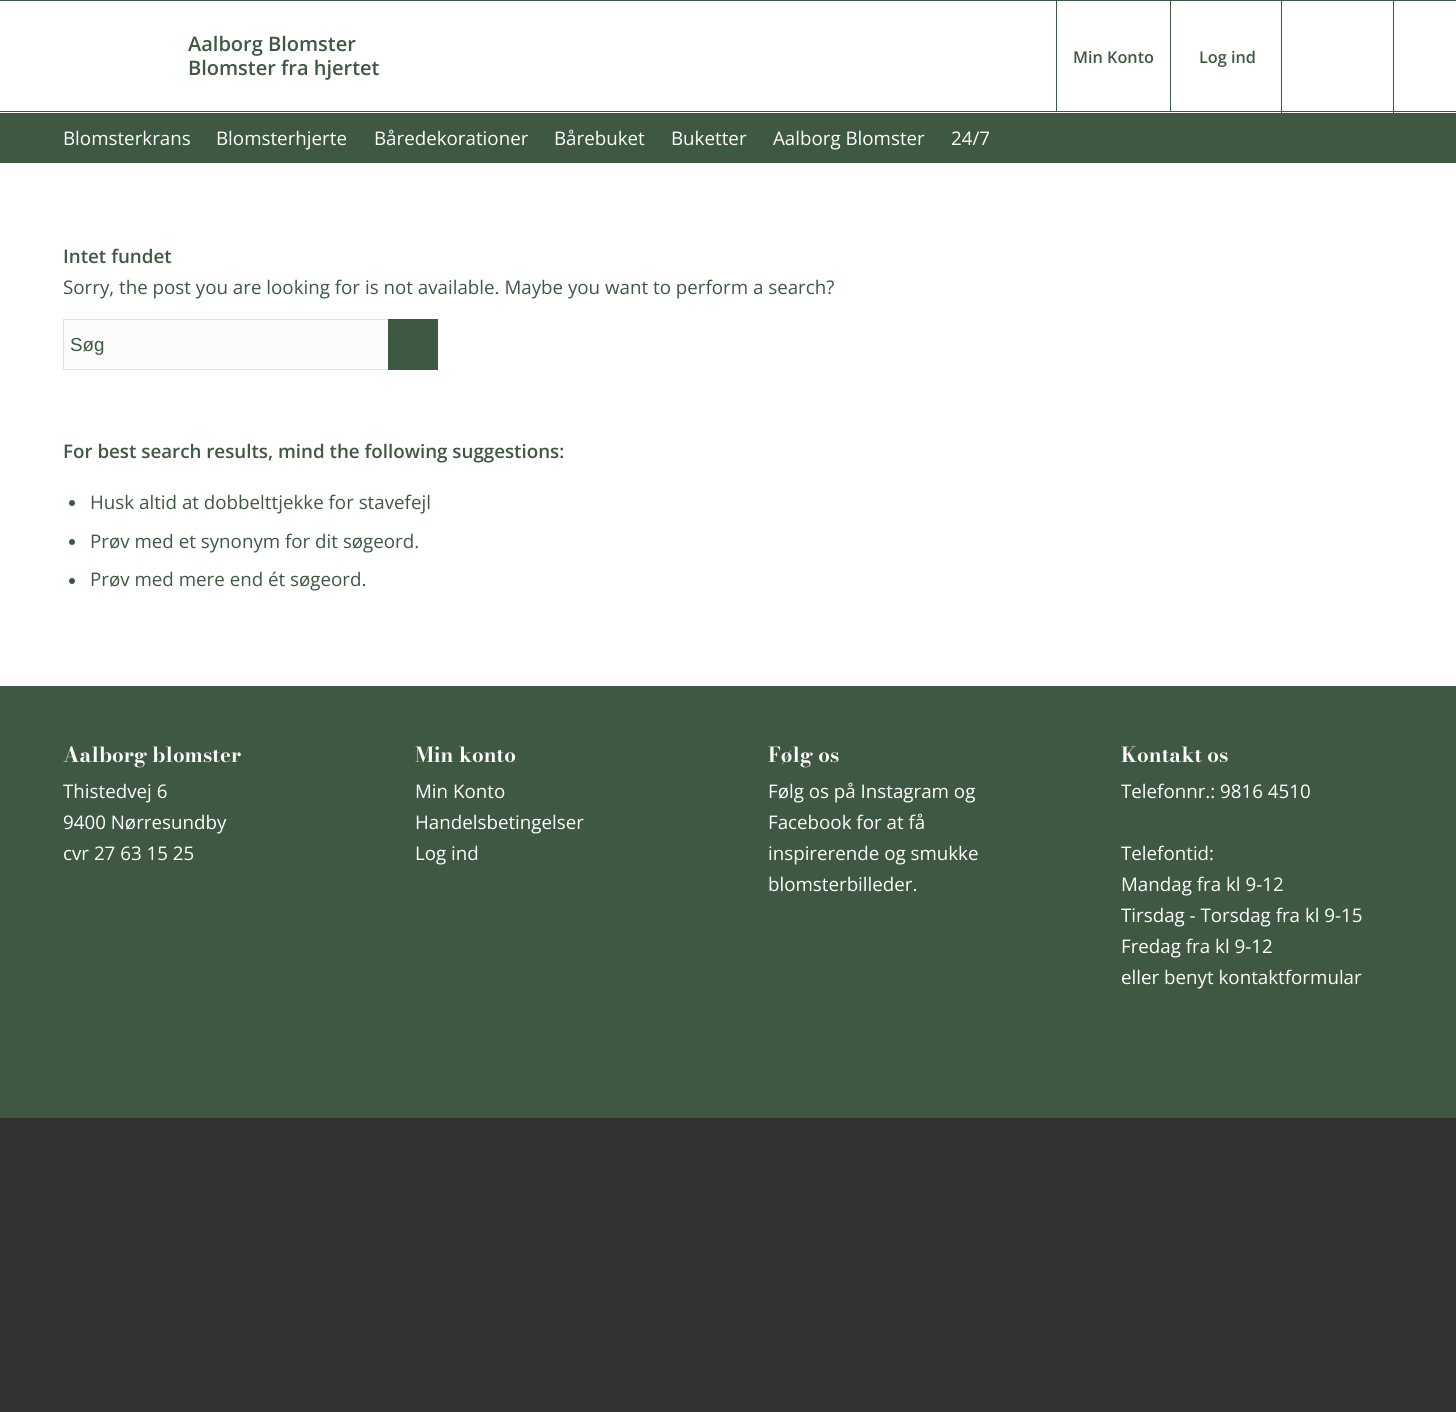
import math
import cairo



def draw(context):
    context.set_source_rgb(51 / 255, 51 / 255, 51 / 255)
    context.paint()
    context.set_source_rgb(1, 1, 1)
    context.rectangle(0, 1, 1456, 112)
    context.fill()
    context.set_source_rgb(62 / 255, 88 / 255, 66 / 255)
    context.rectangle(0, 0, 1456, 1)
    context.fill()
    context.rectangle(0, 111, 1456, 1)
    context.fill()
    context.rectangle(1056, 1, 1, 110)
    context.fill()
    context.rectangle(1170, 1, 1, 110)
    context.fill()
    context.rectangle(1393, 1, 1, 112)
    context.fill()
    context.rectangle(1281, 1, 1, 112)
    context.fill()
    context.rectangle(0, 113, 1456, 50)
    context.fill()
    context.set_source_rgb(1, 1, 1)
    context.rectangle(0, 163, 1456, 523)
    context.fill()
    context.set_source_rgb(252 / 255, 252 / 255, 252 / 255)
    context.rectangle(64, 320, 324, 49)
    context.fill()
    context.rectangle(63.5, 319.5, 374, 50)
    context.set_source_rgb(225 / 255, 225 / 255, 225 / 255)
    context.set_line_width(1)
    context.stroke()
    context.set_source_rgb(62 / 255, 88 / 255, 66 / 255)
    context.rectangle(388, 319, 50, 51)
    context.fill()
    context.arc(72, 503, 3, 0, 2 * math.pi)
    context.fill()
    context.arc(72, 542, 3, 0, 2 * math.pi)
    context.fill()
    context.arc(72, 581, 3, 0, 2 * math.pi)
    context.fill()
    context.rectangle(0, 686, 1456, 432)
    context.fill()
    context.select_font_face("Open Sans SemiBold")
    context.set_font_size(20)
    context.move_to(188, 51)
    context.show_text("Aalborg Blomster")
    context.move_to(188, 75)
    context.show_text("Blomster fra hjertet")
    context.set_font_size(16.25)
    context.move_to(1073, 63)
    context.show_text("Min Konto")
    context.move_to(1199, 63)
    context.show_text("Log ind")
    context.select_font_face("Open Sans")
    context.set_font_size(18.75)
    context.set_source_rgb(1, 1, 1)
    context.move_to(63, 145)
    context.show_text("Blomsterkrans")
    context.move_to(216, 145)
    context.show_text("Blomsterhjerte")
    context.move_to(374, 145)
    context.show_text("Båredekorationer")
    context.move_to(554, 145)
    context.show_text("Bårebuket")
    context.move_to(671, 145)
    context.show_text("Buketter")
    context.move_to(773, 145)
    context.show_text("Aalborg Blomster")
    context.move_to(951, 145)
    context.show_text("24/7")
    context.select_font_face("Open Sans SemiBold")
    context.set_source_rgb(62 / 255, 88 / 255, 66 / 255)
    context.move_to(63, 263)
    context.show_text("Intet fundet")
    context.select_font_face("Open Sans")
    context.move_to(63, 294)
    context.show_text("Sorry, the post you are looking for is not available. Maybe you want to perform a search?")
    context.select_font_face("Liberation Sans")
    context.move_to(70, 351)
    context.show_text("Søg")
    context.select_font_face("Open Sans SemiBold")
    context.move_to(63, 458)
    context.show_text("For best search results, mind the following suggestions:")
    context.select_font_face("Open Sans")
    context.move_to(90, 509)
    context.show_text("Husk altid at dobbelttjekke for stavefejl")
    context.move_to(90, 548)
    context.show_text("Prøv med et synonym for dit søgeord.")
    context.move_to(90, 586)
    context.show_text("Prøv med mere end ét søgeord.")
    context.select_font_face("Bodoni Moda", cairo.FontSlant.NORMAL, cairo.FontWeight.BOLD)
    context.set_font_size(20.6)
    context.set_source_rgb(1, 1, 1)
    context.move_to(63, 762)
    context.show_text("Aalborg blomster")
    context.select_font_face("Open Sans")
    context.set_font_size(18.75)
    context.move_to(63, 798)
    context.show_text("Thistedvej 6")
    context.move_to(63, 829)
    context.show_text("9400 Nørresundby")
    context.move_to(63, 860)
    context.show_text("cvr 27 63 15 25")
    context.select_font_face("Bodoni Moda", cairo.FontSlant.NORMAL, cairo.FontWeight.BOLD)
    context.set_font_size(20.6)
    context.move_to(415, 762)
    context.show_text("Min konto")
    context.select_font_face("Open Sans")
    context.set_font_size(18.75)
    context.move_to(415, 798)
    context.show_text("Min Konto")
    context.move_to(415, 829)
    context.show_text("Handelsbetingelser")
    context.move_to(415, 860)
    context.show_text("Log ind")
    context.select_font_face("Bodoni Moda", cairo.FontSlant.NORMAL, cairo.FontWeight.BOLD)
    context.set_font_size(20.6)
    context.move_to(768, 762)
    context.show_text("Følg os")
    context.select_font_face("Open Sans")
    context.set_font_size(18.75)
    context.move_to(768, 798)
    context.show_text("Følg os på Instagram og")
    context.move_to(768, 829)
    context.show_text("Facebook for at få")
    context.move_to(768, 860)
    context.show_text("inspirerende og smukke")
    context.move_to(768, 891)
    context.show_text("blomsterbilleder.")
    context.select_font_face("Bodoni Moda", cairo.FontSlant.NORMAL, cairo.FontWeight.BOLD)
    context.set_font_size(20.6)
    context.move_to(1121, 762)
    context.show_text("Kontakt os")
    context.select_font_face("Open Sans")
    context.set_font_size(18.75)
    context.move_to(1121, 798)
    context.show_text("Telefonnr.: 9816 4510")
    context.move_to(1121, 860)
    context.show_text("Telefontid:")
    context.move_to(1121, 891)
    context.show_text("Mandag fra kl 9-12")
    context.move_to(1121, 922)
    context.show_text("Tirsdag - Torsdag fra kl 9-15")
    context.move_to(1121, 953)
    context.show_text("Fredag fra kl 9-12")
    context.move_to(1121, 984)
    context.show_text("eller benyt kontaktformular")


surface = cairo.ImageSurface(cairo.Format.RGB24, 1456, 1412)
context = cairo.Context(surface)
options = cairo.FontOptions()
options.set_hint_metrics(cairo.HintMetrics.OFF)
options.set_hint_style(cairo.HintStyle.NONE)
context.set_font_options(options)
context.set_miter_limit(4)
draw(context)
surface.write_to_png("out.png")
